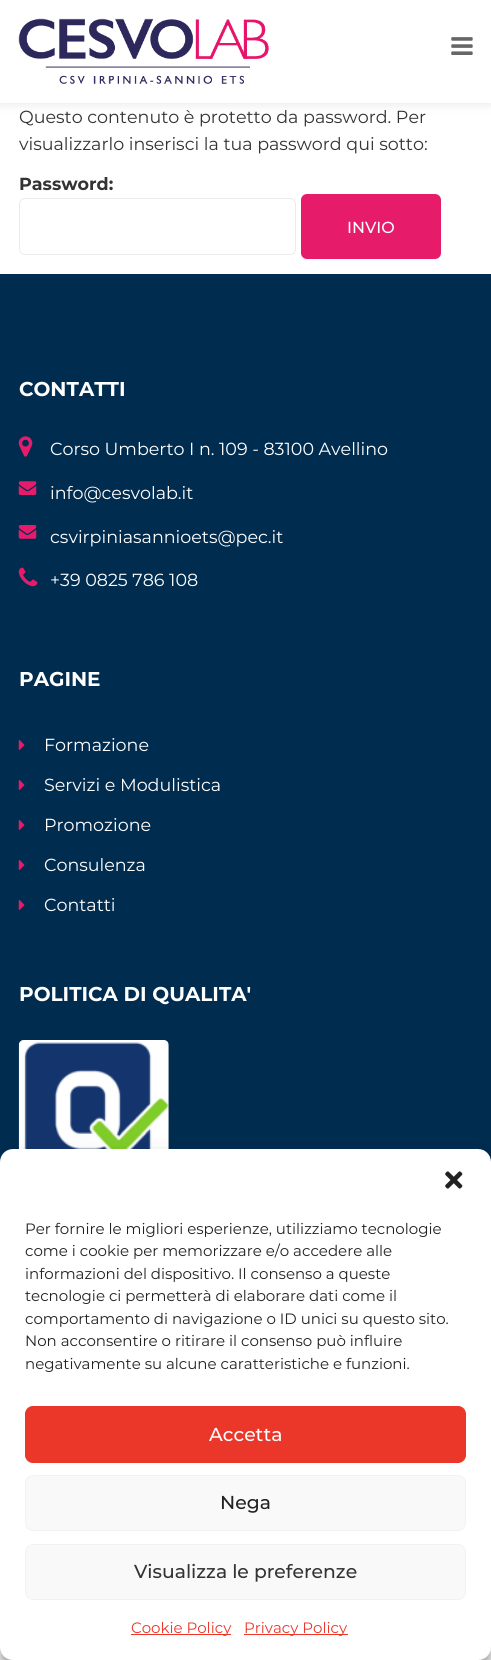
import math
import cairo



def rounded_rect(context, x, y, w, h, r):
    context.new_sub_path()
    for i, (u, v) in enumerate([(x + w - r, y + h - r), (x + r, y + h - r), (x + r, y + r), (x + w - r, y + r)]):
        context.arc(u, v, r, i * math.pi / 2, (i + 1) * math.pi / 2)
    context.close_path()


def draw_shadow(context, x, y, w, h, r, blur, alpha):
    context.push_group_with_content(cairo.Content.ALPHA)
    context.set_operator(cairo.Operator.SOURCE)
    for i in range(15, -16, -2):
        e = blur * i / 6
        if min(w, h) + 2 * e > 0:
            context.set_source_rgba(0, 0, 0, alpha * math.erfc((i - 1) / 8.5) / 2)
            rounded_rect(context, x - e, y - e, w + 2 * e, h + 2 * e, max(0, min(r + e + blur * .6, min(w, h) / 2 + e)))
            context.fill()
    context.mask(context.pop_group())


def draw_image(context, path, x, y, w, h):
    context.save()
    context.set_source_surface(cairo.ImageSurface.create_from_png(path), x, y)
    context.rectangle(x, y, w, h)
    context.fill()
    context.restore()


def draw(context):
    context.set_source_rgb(1, 1, 1)
    context.paint()
    context.set_source_rgb(0, 0, 0)
    draw_shadow(context, 0, 0, 491, 103, 0, 6, 0.11)
    context.set_source_rgb(1, 1, 1)
    context.rectangle(0, 0, 491, 103)
    context.fill()
    draw_image(context, "images/1.png", 18, 18, 251, 66)
    draw_image(context, "images/2.png", 451, 37, 22, 18)
    rounded_rect(context, 19.5, 198.5, 276, 56, 5.5)
    context.set_source_rgb(235 / 255, 235 / 255, 235 / 255)
    context.set_line_width(1)
    context.stroke()
    context.set_source_rgb(230 / 255, 27 / 255, 106 / 255)
    rounded_rect(context, 302.5, 195.5, 137, 62, 4.5)
    context.fill_preserve()
    context.set_line_width(3)
    context.stroke()
    context.set_source_rgb(0, 44 / 255, 80 / 255)
    context.rectangle(0, 274, 491, 888)
    context.fill()
    draw_image(context, "images/3.png", 18, 436, 15, 21)
    draw_image(context, "images/4.png", 18, 481, 19, 14)
    draw_image(context, "images/5.png", 18, 525, 19, 14)
    draw_image(context, "images/6.png", 18, 567, 20, 20)
    draw_image(context, "images/7.png", 18, 740, 7, 10)
    draw_image(context, "images/7.png", 18, 780, 7, 10)
    draw_image(context, "images/7.png", 18, 820, 7, 10)
    draw_image(context, "images/7.png", 18, 860, 7, 10)
    draw_image(context, "images/7.png", 18, 900, 7, 10)
    draw_image(context, "images/8.png", 18, 1040, 151, 109)
    context.set_source_rgb(0, 0, 0)
    draw_shadow(context, 0, 1156, 491, 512, 13, 4, 0.23)
    draw_shadow(context, 0, 1161, 491, 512, 13, 12.5, 0.19)
    context.set_source_rgb(128 / 255, 128 / 255, 128 / 255)
    draw_shadow(context, 404, 1568, 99, 75, 2.5, 3, 1)
    context.set_source_rgb(1, 1, 1)
    rounded_rect(context, 0, 1149, 491, 511, 13)
    context.fill()
    draw_image(context, "images/9.png", 445, 1171, 18, 18)
    context.set_source_rgb(234 / 255, 55 / 255, 42 / 255)
    rounded_rect(context, 25.5, 1406.5, 440, 56, 7.5)
    context.fill_preserve()
    context.set_line_width(1)
    context.stroke()
    context.set_source_rgb(249 / 255, 249 / 255, 249 / 255)
    rounded_rect(context, 25.5, 1475.5, 440, 55, 7.5)
    context.fill_preserve()
    context.set_source_rgb(242 / 255, 242 / 255, 242 / 255)
    context.stroke()
    context.set_source_rgb(249 / 255, 249 / 255, 249 / 255)
    rounded_rect(context, 25.5, 1544.5, 440, 55, 7.5)
    context.fill_preserve()
    context.set_source_rgb(242 / 255, 242 / 255, 242 / 255)
    context.stroke()
    context.set_source_rgb(234 / 255, 55 / 255, 42 / 255)
    context.rectangle(131, 1634, 100, 1)
    context.fill()
    context.rectangle(244, 1634, 104, 1)
    context.fill()
    context.select_font_face("Montserrat")
    context.set_font_size(17.5)
    context.set_source_rgb(51 / 255, 51 / 255, 51 / 255)
    context.move_to(19, 123)
    context.show_text("Questo contenuto è protetto da password. Per")
    context.move_to(19, 150)
    context.show_text("visualizzarlo inserisci la tua password qui sotto:")
    context.select_font_face("Montserrat", cairo.FontSlant.NORMAL, cairo.FontWeight.BOLD)
    context.move_to(19, 190)
    context.show_text("Password:")
    context.select_font_face("Montserrat Medium")
    context.set_font_size(16)
    context.set_source_rgb(1, 1, 1)
    context.move_to(347, 233)
    context.show_text("INVIO")
    context.select_font_face("Montserrat", cairo.FontSlant.NORMAL, cairo.FontWeight.BOLD)
    context.set_font_size(20)
    context.move_to(19, 396)
    context.show_text("CONTATTI")
    context.select_font_face("Montserrat")
    context.set_font_size(17.5)
    context.move_to(50, 455)
    context.show_text("Corso Umberto I n. 109 - 83100 Avellino")
    context.move_to(50, 499)
    context.show_text("info@cesvolab.it")
    context.move_to(50, 543)
    context.show_text("csvirpiniasannioets@pec.it")
    context.move_to(50, 586)
    context.show_text("+39 0825 786 108")
    context.select_font_face("Montserrat", cairo.FontSlant.NORMAL, cairo.FontWeight.BOLD)
    context.set_font_size(20)
    context.move_to(19, 686)
    context.show_text("PAGINE")
    context.select_font_face("Montserrat")
    context.set_font_size(17.5)
    context.move_to(44, 751)
    context.show_text("Formazione")
    context.move_to(44, 791)
    context.show_text("Servizi e Modulistica")
    context.move_to(44, 831)
    context.show_text("Promozione")
    context.move_to(44, 871)
    context.show_text("Consulenza")
    context.move_to(44, 911)
    context.show_text("Contatti")
    context.select_font_face("Montserrat", cairo.FontSlant.NORMAL, cairo.FontWeight.BOLD)
    context.set_font_size(20)
    context.move_to(19, 1001)
    context.show_text("POLITICA DI QUALITA'")
    context.select_font_face("Montserrat")
    context.set_font_size(15)
    context.set_source_rgb(34 / 255, 34 / 255, 34 / 255)
    context.move_to(25, 1234)
    context.show_text("Per fornire le migliori esperienze, utilizziamo tecnologie")
    context.move_to(25, 1256)
    context.show_text("come i cookie per memorizzare e/o accedere alle")
    context.move_to(25, 1279)
    context.show_text("informazioni del dispositivo. Il consenso a queste")
    context.move_to(25, 1301)
    context.show_text("tecnologie ci permetterà di elaborare dati come il")
    context.move_to(25, 1324)
    context.show_text("comportamento di navigazione o ID unici su questo sito.")
    context.move_to(25, 1346)
    context.show_text("Non acconsentire o ritirare il consenso può influire")
    context.move_to(25, 1369)
    context.show_text("negativamente su alcune caratteristiche e funzioni.")
    context.select_font_face("Montserrat Medium")
    context.set_font_size(18.75)
    context.set_source_rgb(1, 1, 1)
    context.move_to(209, 1441)
    context.show_text("Accetta")
    context.set_source_rgb(34 / 255, 34 / 255, 34 / 255)
    context.move_to(220, 1509)
    context.show_text("Nega")
    context.set_source_rgb(51 / 255, 51 / 255, 51 / 255)
    context.move_to(134, 1578)
    context.show_text("Visualizza le preferenze")
    context.select_font_face("Montserrat")
    context.set_font_size(15)
    context.set_source_rgb(234 / 255, 55 / 255, 42 / 255)
    context.move_to(131, 1633)
    context.show_text("Cookie Policy")
    context.move_to(244, 1633)
    context.show_text("Privacy Policy")


surface = cairo.ImageSurface(cairo.Format.RGB24, 491, 1660)
context = cairo.Context(surface)
options = cairo.FontOptions()
options.set_hint_metrics(cairo.HintMetrics.OFF)
options.set_hint_style(cairo.HintStyle.NONE)
context.set_font_options(options)
context.set_miter_limit(4)
draw(context)
surface.write_to_png("out.png")
